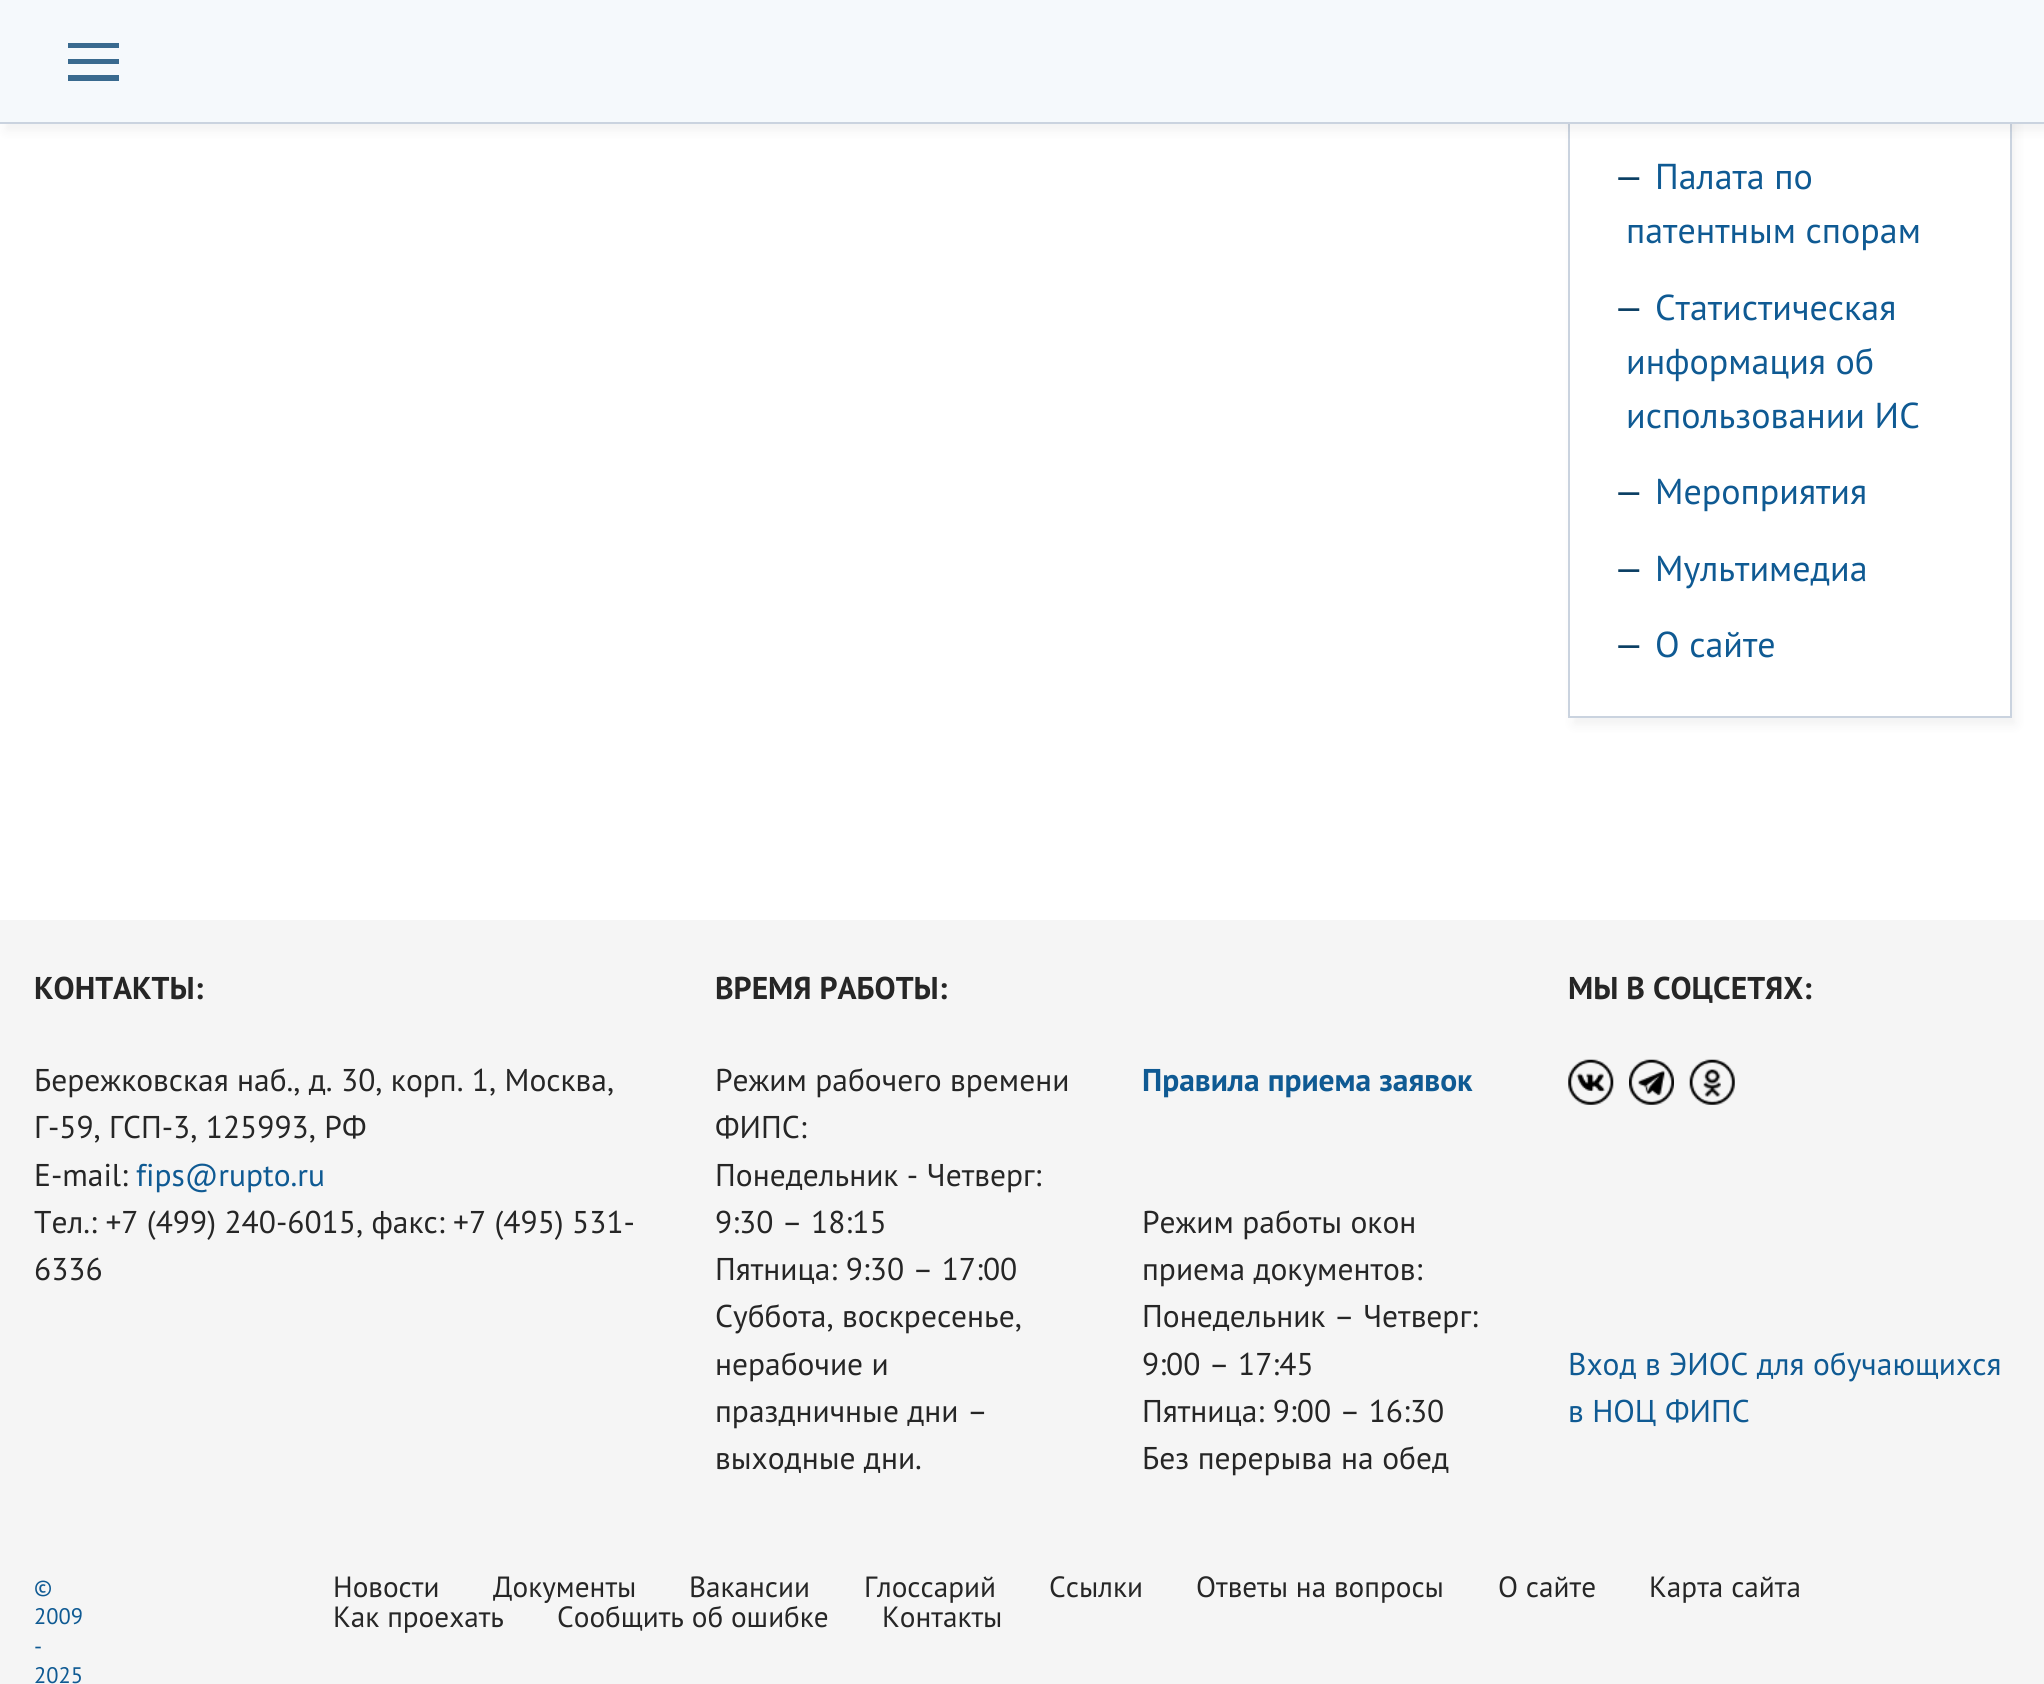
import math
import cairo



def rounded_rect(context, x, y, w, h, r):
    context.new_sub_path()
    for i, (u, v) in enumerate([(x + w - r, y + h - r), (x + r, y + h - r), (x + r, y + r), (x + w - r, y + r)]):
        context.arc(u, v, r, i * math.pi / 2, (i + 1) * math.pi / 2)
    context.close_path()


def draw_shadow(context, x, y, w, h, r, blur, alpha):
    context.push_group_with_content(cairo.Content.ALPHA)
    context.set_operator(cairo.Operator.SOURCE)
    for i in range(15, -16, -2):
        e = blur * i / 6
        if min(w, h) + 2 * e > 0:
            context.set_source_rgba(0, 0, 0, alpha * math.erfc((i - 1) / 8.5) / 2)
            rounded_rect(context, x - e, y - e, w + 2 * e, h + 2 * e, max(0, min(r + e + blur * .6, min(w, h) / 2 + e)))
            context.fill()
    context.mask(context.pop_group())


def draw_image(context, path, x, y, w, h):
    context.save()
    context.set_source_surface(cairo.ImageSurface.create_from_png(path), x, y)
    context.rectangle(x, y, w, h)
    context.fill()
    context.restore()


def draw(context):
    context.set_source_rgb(1, 1, 1)
    context.paint()
    context.save()
    context.set_fill_rule(cairo.FillRule.EVEN_ODD)
    context.new_path()
    context.move_to(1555, 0)
    context.line_to(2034, 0)
    context.line_to(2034, 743)
    context.line_to(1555, 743)
    context.close_path()
    context.move_to(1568, -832)
    context.line_to(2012, -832)
    context.line_to(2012, 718)
    context.line_to(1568, 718)
    context.close_path()
    context.clip()
    context.set_source_rgb(26 / 255, 31 / 255, 32 / 255)
    draw_shadow(context, 1573, -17, 443, 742, 0, 5.5, 0.06)
    context.restore()
    context.rectangle(1569, -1, 442, 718)
    context.set_source_rgb(202 / 255, 211 / 255, 223 / 255)
    context.stroke()
    context.set_source_rgb(26 / 255, 31 / 255, 32 / 255)
    draw_shadow(context, 5, 7, 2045, 124, 0, 5.5, 0.06)
    context.set_source_rgb(245 / 255, 249 / 255, 252 / 255)
    context.rectangle(0, 0, 2044, 122)
    context.fill()
    context.set_source_rgb(202 / 255, 211 / 255, 223 / 255)
    context.rectangle(0, 122, 2044, 2)
    context.fill()
    context.set_source_rgb(57 / 255, 106 / 255, 143 / 255)
    context.rectangle(68, 75, 51, 6)
    context.fill()
    context.rectangle(68, 59, 51, 5)
    context.fill()
    context.rectangle(68, 43, 51, 5)
    context.fill()
    context.set_source_rgb(245 / 255, 245 / 255, 245 / 255)
    context.rectangle(0, 920, 2044, 764)
    context.fill()
    draw_image(context, "images/1.png", 1568, 1059, 46, 46)
    draw_image(context, "images/2.png", 1629, 1059, 45, 46)
    draw_image(context, "images/3.png", 1689, 1059, 46, 46)
    context.select_font_face("PT Sans")
    context.set_font_size(36)
    context.set_source_rgb(10 / 255, 62 / 255, 99 / 255)
    context.move_to(1614, 189)
    context.show_text("—")
    context.set_source_rgb(15 / 255, 90 / 255, 147 / 255)
    context.move_to(1655, 189)
    context.show_text("Палата по")
    context.move_to(1626, 243)
    context.show_text("патентным спорам")
    context.set_source_rgb(10 / 255, 62 / 255, 99 / 255)
    context.move_to(1614, 320)
    context.show_text("—")
    context.set_source_rgb(15 / 255, 90 / 255, 147 / 255)
    context.move_to(1655, 320)
    context.show_text("Статистическая")
    context.move_to(1626, 374)
    context.show_text("информация об")
    context.move_to(1626, 428)
    context.show_text("использовании ИС")
    context.set_source_rgb(10 / 255, 62 / 255, 99 / 255)
    context.move_to(1614, 504)
    context.show_text("—")
    context.set_source_rgb(15 / 255, 90 / 255, 147 / 255)
    context.move_to(1655, 504)
    context.show_text("Мероприятия")
    context.set_source_rgb(10 / 255, 62 / 255, 99 / 255)
    context.move_to(1614, 581)
    context.show_text("—")
    context.set_source_rgb(15 / 255, 90 / 255, 147 / 255)
    context.move_to(1655, 581)
    context.show_text("Мультимедиа")
    context.set_source_rgb(10 / 255, 62 / 255, 99 / 255)
    context.move_to(1614, 657)
    context.show_text("—")
    context.set_source_rgb(15 / 255, 90 / 255, 147 / 255)
    context.move_to(1655, 657)
    context.show_text("О сайте")
    context.select_font_face("PT Sans", cairo.FontSlant.NORMAL, cairo.FontWeight.BOLD)
    context.set_font_size(31.5)
    context.set_source_rgb(38 / 255, 38 / 255, 38 / 255)
    context.move_to(34, 999)
    context.show_text("КОНТАКТЫ:")
    context.select_font_face("PT Sans")
    context.move_to(34, 1091)
    context.show_text("Бережковская наб., д. 30, корп. 1, Москва,")
    context.move_to(34, 1138)
    context.show_text("Г-59, ГСП-3, 125993, РФ")
    context.move_to(34, 1186)
    context.show_text("E-mail:")
    context.set_source_rgb(15 / 255, 90 / 255, 147 / 255)
    context.move_to(136, 1186)
    context.show_text("fips@rupto.ru")
    context.set_source_rgb(38 / 255, 38 / 255, 38 / 255)
    context.move_to(34, 1233)
    context.show_text("Тел.: +7 (499) 240-6015, факс: +7 (495) 531-")
    context.move_to(34, 1280)
    context.show_text("6336")
    context.select_font_face("PT Sans", cairo.FontSlant.NORMAL, cairo.FontWeight.BOLD)
    context.move_to(715, 999)
    context.show_text("ВРЕМЯ РАБОТЫ:")
    context.select_font_face("PT Sans")
    context.move_to(715, 1091)
    context.show_text("Режим рабочего времени")
    context.move_to(715, 1138)
    context.show_text("ФИПС:")
    context.move_to(715, 1186)
    context.show_text("Понедельник - Четверг:")
    context.move_to(715, 1233)
    context.show_text("9:30 – 18:15")
    context.move_to(715, 1280)
    context.show_text("Пятница: 9:30 – 17:00")
    context.move_to(715, 1327)
    context.show_text("Суббота, воскресенье,")
    context.move_to(715, 1375)
    context.show_text("нерабочие и")
    context.move_to(715, 1422)
    context.show_text("праздничные дни –")
    context.move_to(715, 1469)
    context.show_text("выходные дни.")
    context.select_font_face("PT Sans", cairo.FontSlant.NORMAL, cairo.FontWeight.BOLD)
    context.set_source_rgb(15 / 255, 90 / 255, 147 / 255)
    context.move_to(1142, 1091)
    context.show_text("Правила приема заявок")
    context.select_font_face("PT Sans")
    context.set_source_rgb(38 / 255, 38 / 255, 38 / 255)
    context.move_to(1142, 1233)
    context.show_text("Режим работы окон")
    context.move_to(1142, 1280)
    context.show_text("приема документов:")
    context.move_to(1142, 1327)
    context.show_text("Понедельник – Четверг:")
    context.move_to(1142, 1375)
    context.show_text("9:00 – 17:45")
    context.move_to(1142, 1422)
    context.show_text("Пятница: 9:00 – 16:30")
    context.move_to(1142, 1469)
    context.show_text("Без перерыва на обед")
    context.select_font_face("PT Sans", cairo.FontSlant.NORMAL, cairo.FontWeight.BOLD)
    context.move_to(1568, 999)
    context.show_text("МЫ В СОЦСЕТЯХ:")
    context.select_font_face("PT Sans")
    context.set_source_rgb(15 / 255, 90 / 255, 147 / 255)
    context.move_to(1568, 1375)
    context.show_text("Вход в ЭИОС для обучающихся")
    context.move_to(1568, 1422)
    context.show_text("в НОЦ ФИПС")
    context.set_font_size(22.5)
    context.move_to(34, 1595)
    context.show_text("©")
    context.move_to(34, 1624)
    context.show_text("2009")
    context.move_to(34, 1654)
    context.show_text("-")
    context.move_to(34, 1683)
    context.show_text("2025")
    context.set_font_size(29.25)
    context.set_source_rgb(38 / 255, 38 / 255, 38 / 255)
    context.move_to(333, 1597)
    context.show_text("Новости")
    context.move_to(493, 1597)
    context.show_text("Документы")
    context.move_to(689, 1597)
    context.show_text("Вакансии")
    context.move_to(864, 1597)
    context.show_text("Глоссарий")
    context.move_to(1049, 1597)
    context.show_text("Ссылки")
    context.move_to(1196, 1597)
    context.show_text("Ответы на вопросы")
    context.move_to(1498, 1597)
    context.show_text("О сайте")
    context.move_to(1649, 1597)
    context.show_text("Карта сайта")
    context.move_to(333, 1627)
    context.show_text("Как проехать")
    context.move_to(557, 1627)
    context.show_text("Сообщить об ошибке")
    context.move_to(882, 1627)
    context.show_text("Контакты")


surface = cairo.ImageSurface(cairo.Format.RGB24, 2044, 1684)
context = cairo.Context(surface)
options = cairo.FontOptions()
options.set_hint_metrics(cairo.HintMetrics.OFF)
options.set_hint_style(cairo.HintStyle.NONE)
context.set_font_options(options)
context.set_miter_limit(4)
draw(context)
surface.write_to_png("out.png")
